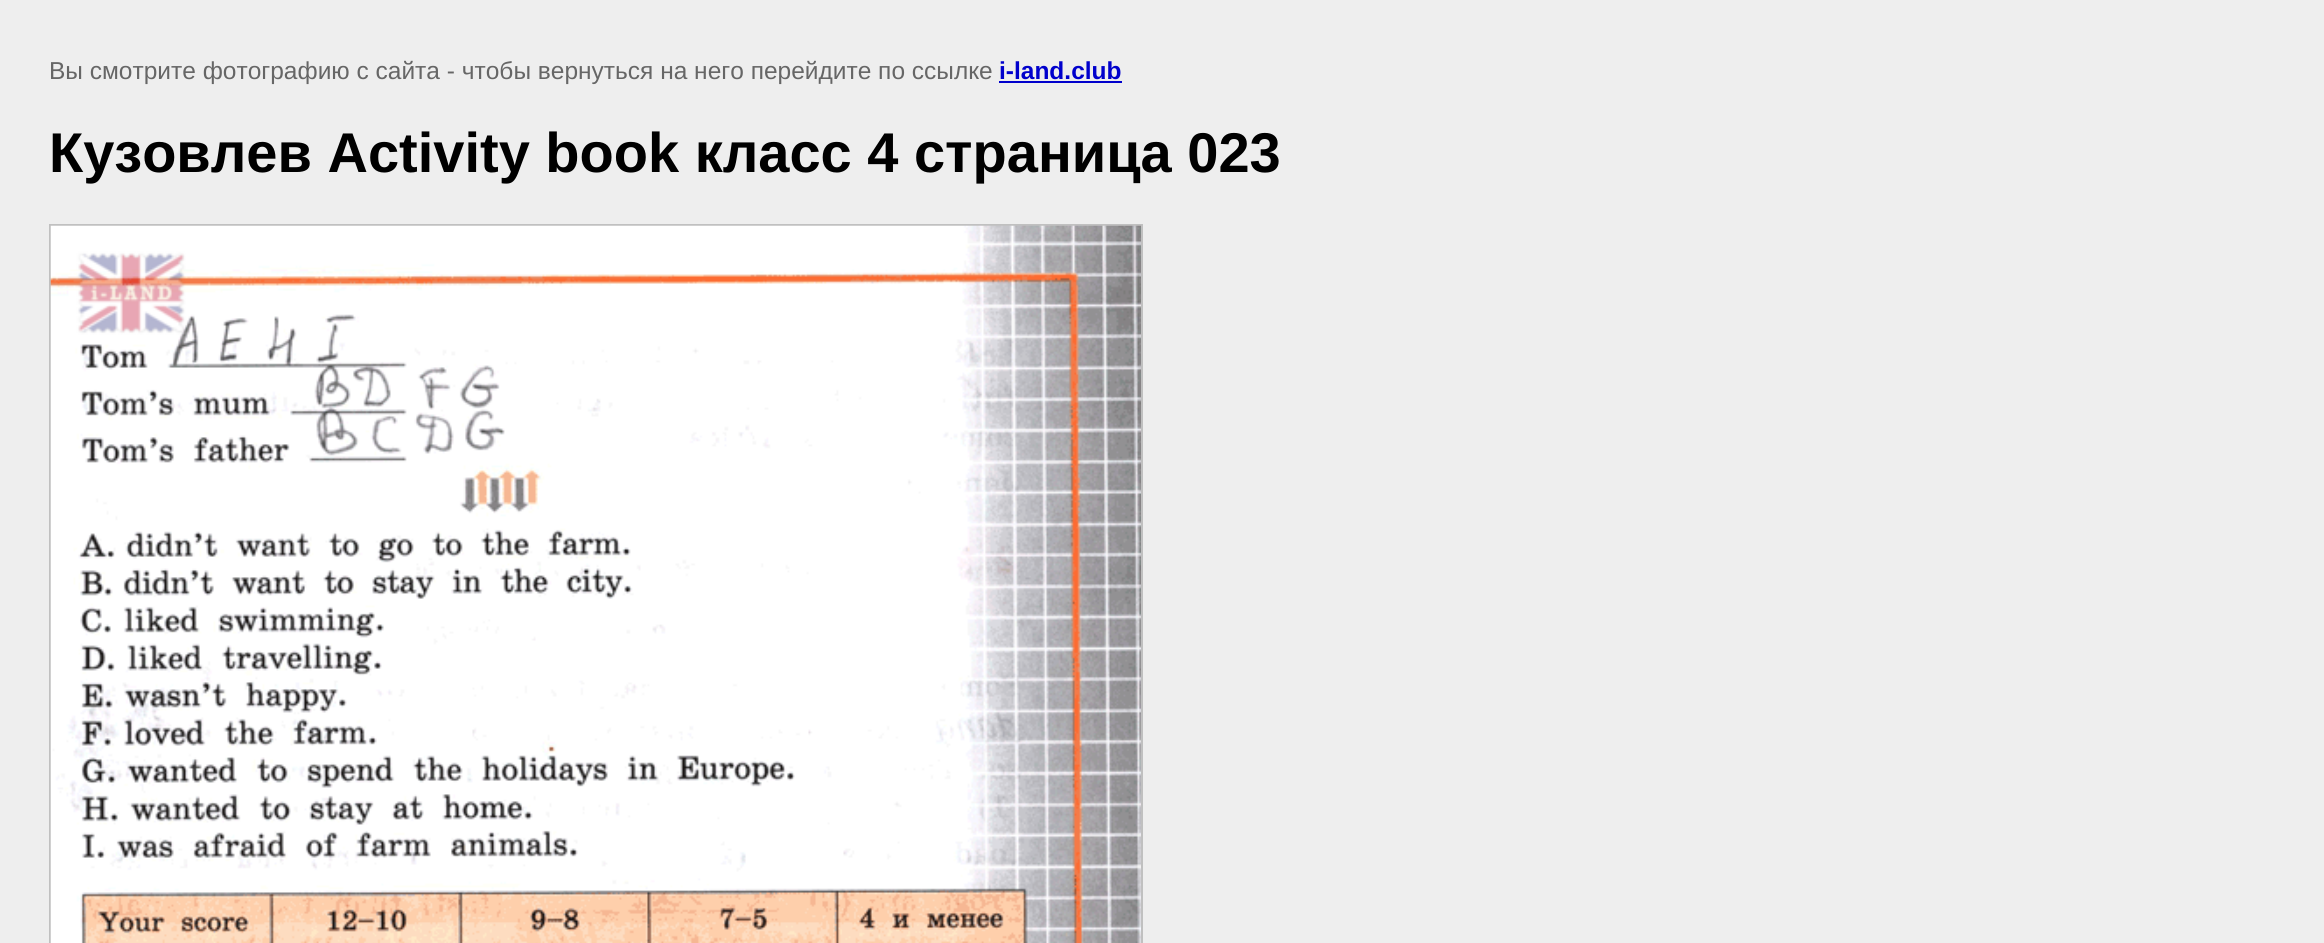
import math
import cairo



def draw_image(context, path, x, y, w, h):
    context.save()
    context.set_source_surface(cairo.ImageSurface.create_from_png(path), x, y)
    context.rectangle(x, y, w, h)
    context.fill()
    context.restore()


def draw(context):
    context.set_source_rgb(238 / 255, 238 / 255, 238 / 255)
    context.paint()
    context.set_source_rgb(0, 0, 204 / 255)
    context.rectangle(999, 81, 123, 2)
    context.fill()
    context.rectangle(50, 225, 1092, 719)
    context.set_source_rgb(192 / 255, 192 / 255, 192 / 255)
    context.stroke()
    draw_image(context, "images/1.png", 50, 225, 1091, 718)
    context.select_font_face("Liberation Sans")
    context.set_font_size(24.5)
    context.set_source_rgb(102 / 255, 102 / 255, 102 / 255)
    context.move_to(49, 79)
    context.show_text("Вы смотрите фотографию с сайта - чтобы вернуться на него перейдите по ссылке")
    context.select_font_face("Liberation Sans", cairo.FontSlant.NORMAL, cairo.FontWeight.BOLD)
    context.set_source_rgb(0, 0, 204 / 255)
    context.move_to(999, 79)
    context.show_text("i-land.club")
    context.set_font_size(56)
    context.set_source_rgb(0, 0, 0)
    context.move_to(49, 172)
    context.show_text("Кузовлев Activity book класс 4 страница 023")


surface = cairo.ImageSurface(cairo.Format.RGB24, 2324, 943)
context = cairo.Context(surface)
options = cairo.FontOptions()
options.set_hint_metrics(cairo.HintMetrics.OFF)
options.set_hint_style(cairo.HintStyle.NONE)
context.set_font_options(options)
context.set_miter_limit(4)
draw(context)
surface.write_to_png("out.png")
